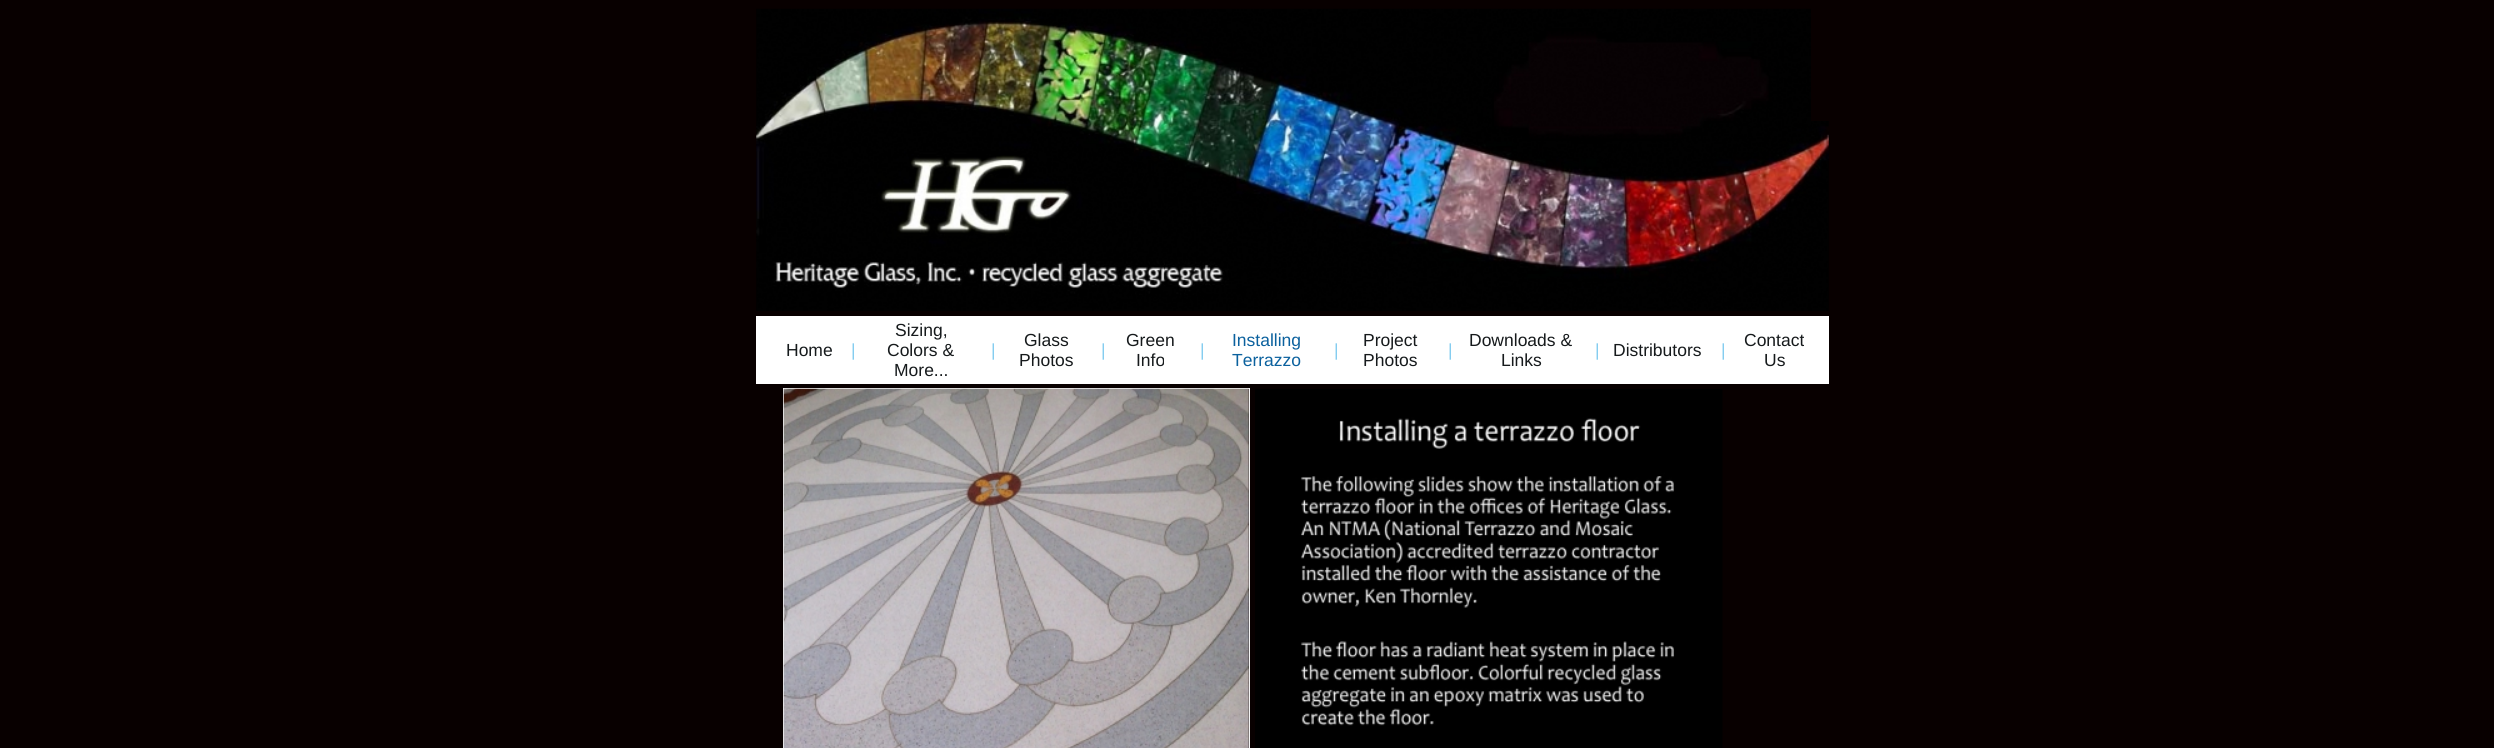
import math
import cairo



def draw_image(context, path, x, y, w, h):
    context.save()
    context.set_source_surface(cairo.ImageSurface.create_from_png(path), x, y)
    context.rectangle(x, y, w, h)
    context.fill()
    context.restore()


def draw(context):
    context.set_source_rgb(8 / 255, 0, 0)
    context.paint()
    draw_image(context, "images/1.png", 756, 8, 1073, 303)
    context.set_source_rgb(8 / 255, 0, 0)
    context.rectangle(1811, 8, 18, 113)
    context.fill()
    context.set_source_rgb(1, 1, 1)
    context.rectangle(756, 316, 1073, 68)
    context.fill()
    context.rectangle(783.5, 388.5, 466, 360)
    context.set_source_rgb(245 / 255, 245 / 255, 245 / 255)
    context.set_line_width(1)
    context.stroke()
    draw_image(context, "images/2.png", 783, 388, 466, 360)
    draw_image(context, "images/3.png", 1255, 389, 468, 359)
    context.select_font_face("Liberation Sans")
    context.set_font_size(17.5)
    context.set_source_rgb(22 / 255, 26 / 255, 28 / 255)
    context.move_to(786, 356)
    context.show_text("Home")
    context.set_source_rgb(132 / 255, 204 / 255, 240 / 255)
    context.move_to(851, 356)
    context.show_text("|")
    context.set_source_rgb(22 / 255, 26 / 255, 28 / 255)
    context.move_to(895, 336)
    context.show_text("Sizing,")
    context.move_to(887, 356)
    context.show_text("Colors &")
    context.move_to(894, 376)
    context.show_text("More...")
    context.set_source_rgb(132 / 255, 204 / 255, 240 / 255)
    context.move_to(991, 356)
    context.show_text("|")
    context.set_source_rgb(22 / 255, 26 / 255, 28 / 255)
    context.move_to(1024, 346)
    context.show_text("Glass")
    context.move_to(1019, 366)
    context.show_text("Photos")
    context.set_source_rgb(132 / 255, 204 / 255, 240 / 255)
    context.move_to(1101, 356)
    context.show_text("|")
    context.set_source_rgb(22 / 255, 26 / 255, 28 / 255)
    context.move_to(1126, 346)
    context.show_text("Green")
    context.move_to(1136, 366)
    context.show_text("Info")
    context.set_source_rgb(132 / 255, 204 / 255, 240 / 255)
    context.move_to(1200, 356)
    context.show_text("|")
    context.set_source_rgb(11 / 255, 97 / 255, 158 / 255)
    context.move_to(1232, 346)
    context.show_text("Installing")
    context.move_to(1232, 366)
    context.show_text("Terrazzo")
    context.set_source_rgb(132 / 255, 204 / 255, 240 / 255)
    context.move_to(1334, 356)
    context.show_text("|")
    context.set_source_rgb(22 / 255, 26 / 255, 28 / 255)
    context.move_to(1363, 346)
    context.show_text("Project")
    context.move_to(1363, 366)
    context.show_text("Photos")
    context.set_source_rgb(132 / 255, 204 / 255, 240 / 255)
    context.move_to(1448, 356)
    context.show_text("|")
    context.set_source_rgb(22 / 255, 26 / 255, 28 / 255)
    context.move_to(1469, 346)
    context.show_text("Downloads &")
    context.move_to(1501, 366)
    context.show_text("Links")
    context.set_source_rgb(132 / 255, 204 / 255, 240 / 255)
    context.move_to(1595, 356)
    context.show_text("|")
    context.set_source_rgb(22 / 255, 26 / 255, 28 / 255)
    context.move_to(1613, 356)
    context.show_text("Distributors")
    context.set_source_rgb(132 / 255, 204 / 255, 240 / 255)
    context.move_to(1721, 356)
    context.show_text("|")
    context.set_source_rgb(22 / 255, 26 / 255, 28 / 255)
    context.move_to(1744, 346)
    context.show_text("Contact")
    context.move_to(1764, 366)
    context.show_text("Us")


surface = cairo.ImageSurface(cairo.Format.RGB24, 2494, 748)
context = cairo.Context(surface)
options = cairo.FontOptions()
options.set_hint_metrics(cairo.HintMetrics.OFF)
options.set_hint_style(cairo.HintStyle.NONE)
context.set_font_options(options)
context.set_miter_limit(4)
draw(context)
surface.write_to_png("out.png")
